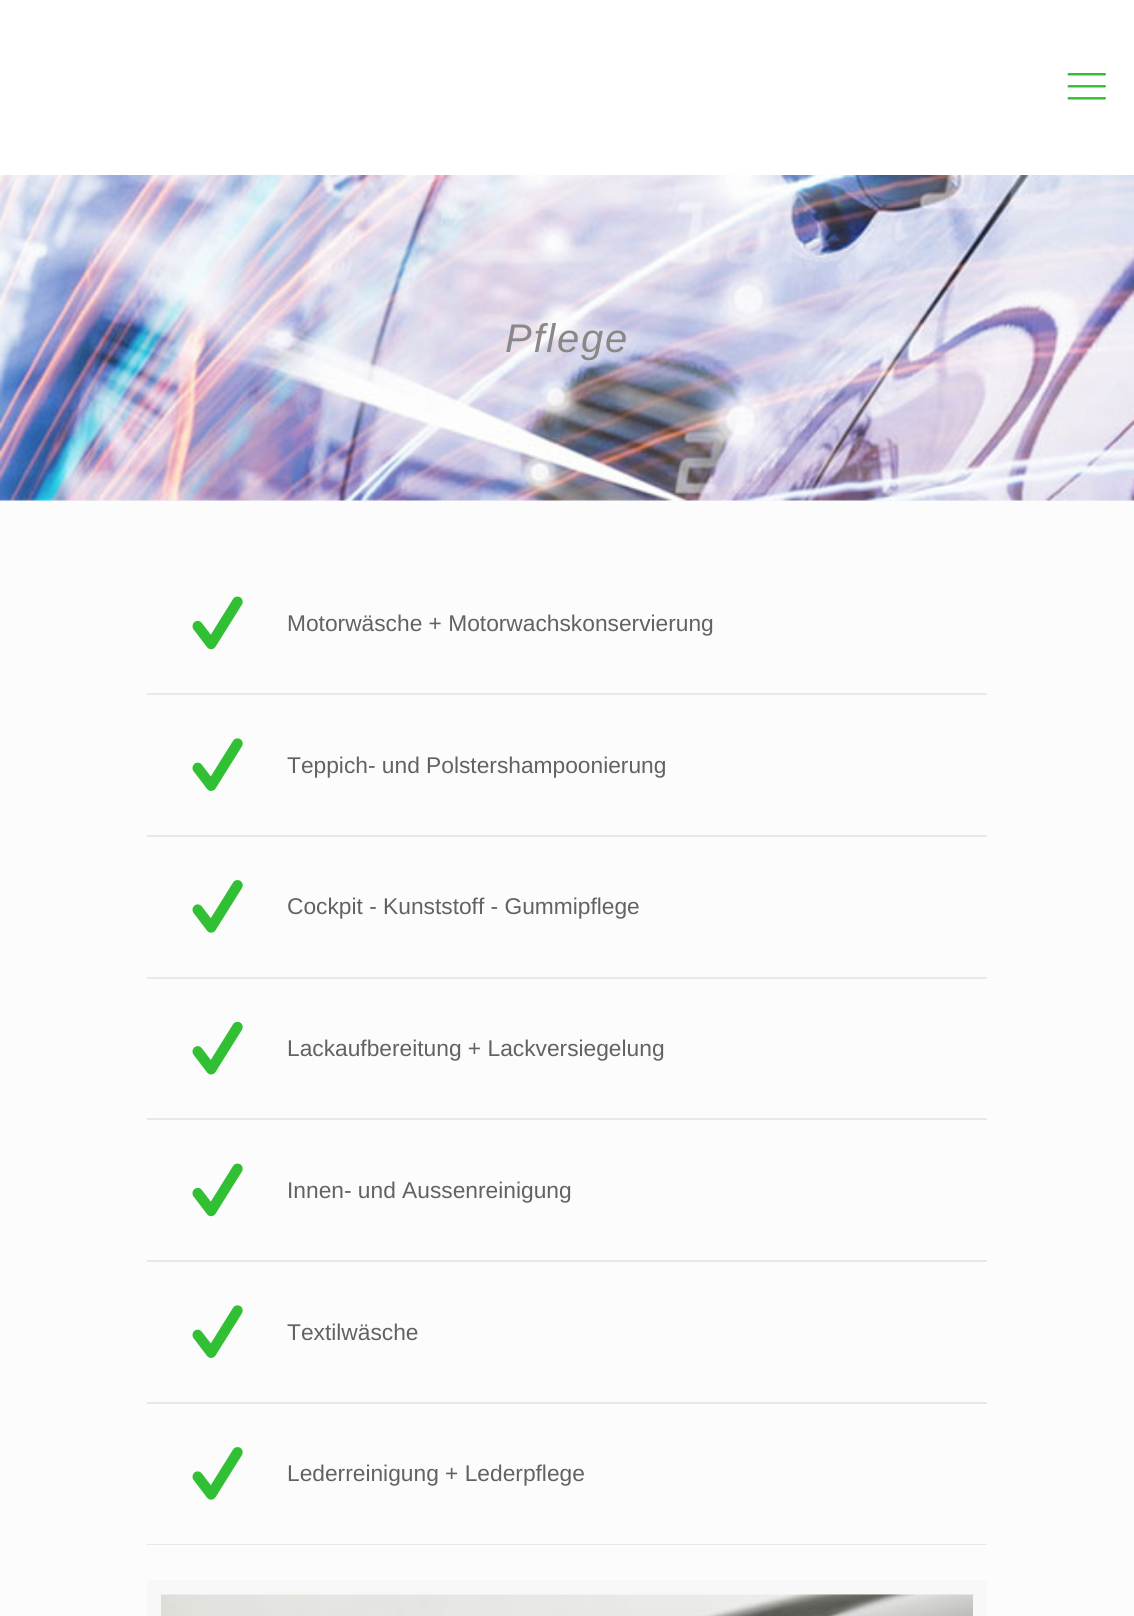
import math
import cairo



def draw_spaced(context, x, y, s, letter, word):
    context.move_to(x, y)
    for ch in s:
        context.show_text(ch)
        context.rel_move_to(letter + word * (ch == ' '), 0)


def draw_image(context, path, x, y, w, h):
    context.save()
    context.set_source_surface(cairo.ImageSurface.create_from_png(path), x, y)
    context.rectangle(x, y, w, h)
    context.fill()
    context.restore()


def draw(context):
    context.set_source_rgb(252 / 255, 252 / 255, 252 / 255)
    context.paint()
    context.set_source_rgb(1, 1, 1)
    context.rectangle(0, 0, 1134, 175)
    context.fill()
    draw_image(context, "images/1.png", 1067, 73, 39, 27)
    context.set_source_rgb(247 / 255, 247 / 255, 247 / 255)
    context.rectangle(0, 500, 1134, 1)
    context.fill()
    draw_image(context, "images/2.png", 0, 175, 1134, 326)
    context.set_source_rgb(232 / 255, 232 / 255, 232 / 255)
    context.rectangle(147, 693, 840, 2)
    context.fill()
    draw_image(context, "images/3.png", 192, 596, 51, 54)
    context.rectangle(147, 835, 840, 2)
    context.fill()
    draw_image(context, "images/4.png", 192, 738, 51, 53)
    context.rectangle(147, 977, 840, 2)
    context.fill()
    draw_image(context, "images/5.png", 192, 880, 51, 53)
    context.rectangle(147, 1118, 840, 2)
    context.fill()
    draw_image(context, "images/6.png", 192, 1021, 51, 54)
    context.rectangle(147, 1260, 840, 2)
    context.fill()
    draw_image(context, "images/3.png", 192, 1163, 51, 54)
    context.rectangle(147, 1402, 840, 2)
    context.fill()
    draw_image(context, "images/4.png", 192, 1305, 51, 53)
    context.rectangle(147, 1544, 840, 1)
    context.fill()
    draw_image(context, "images/5.png", 192, 1447, 51, 53)
    context.rectangle(154, 1587, 826, 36)
    context.set_source_rgb(248 / 255, 248 / 255, 248 / 255)
    context.set_line_width(14)
    context.stroke()
    draw_image(context, "images/7.png", 161, 1594, 812, 22)
    context.select_font_face("Liberation Sans", cairo.FontSlant.ITALIC)
    context.set_font_size(40)
    context.set_source_rgb(136 / 255, 136 / 255, 136 / 255)
    draw_spaced(context, 505, 352, "Pflege", 1.75, 0)
    context.select_font_face("Liberation Sans")
    context.set_font_size(22.75)
    context.set_source_rgb(98 / 255, 98 / 255, 98 / 255)
    context.move_to(287, 631)
    context.show_text("Motorwäsche + Motorwachskonservierung")
    context.move_to(287, 773)
    context.show_text("Teppich- und Polstershampoonierung")
    context.move_to(287, 914)
    context.show_text("Cockpit - Kunststoff - Gummipflege")
    context.move_to(287, 1056)
    context.show_text("Lackaufbereitung + Lackversiegelung")
    context.move_to(287, 1198)
    context.show_text("Innen- und Aussenreinigung")
    context.move_to(287, 1340)
    context.show_text("Textilwäsche")
    context.move_to(287, 1481)
    context.show_text("Lederreinigung + Lederpflege")


surface = cairo.ImageSurface(cairo.Format.RGB24, 1134, 1616)
context = cairo.Context(surface)
options = cairo.FontOptions()
options.set_hint_metrics(cairo.HintMetrics.OFF)
options.set_hint_style(cairo.HintStyle.NONE)
context.set_font_options(options)
context.set_miter_limit(4)
draw(context)
surface.write_to_png("out.png")
